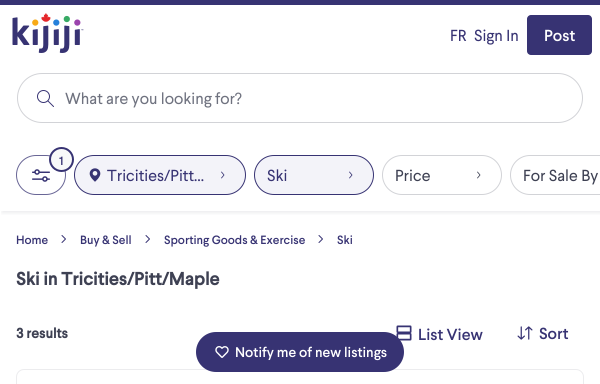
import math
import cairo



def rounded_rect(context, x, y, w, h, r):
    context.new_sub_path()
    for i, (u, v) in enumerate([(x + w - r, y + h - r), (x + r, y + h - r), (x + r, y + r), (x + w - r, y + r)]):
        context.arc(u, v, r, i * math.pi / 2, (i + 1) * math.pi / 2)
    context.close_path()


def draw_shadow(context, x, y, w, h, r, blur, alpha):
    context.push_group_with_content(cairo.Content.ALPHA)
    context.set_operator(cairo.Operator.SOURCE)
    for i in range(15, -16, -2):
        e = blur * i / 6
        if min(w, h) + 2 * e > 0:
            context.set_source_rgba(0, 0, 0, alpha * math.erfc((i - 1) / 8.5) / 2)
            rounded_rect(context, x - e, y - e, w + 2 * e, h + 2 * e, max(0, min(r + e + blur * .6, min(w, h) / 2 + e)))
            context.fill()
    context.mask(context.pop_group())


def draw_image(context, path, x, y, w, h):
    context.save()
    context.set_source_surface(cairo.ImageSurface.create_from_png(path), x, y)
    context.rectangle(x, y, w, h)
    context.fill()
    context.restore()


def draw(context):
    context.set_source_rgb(1, 1, 1)
    context.paint()
    context.set_source_rgb(55 / 255, 51 / 255, 115 / 255)
    context.rectangle(0, 0, 600, 5)
    context.fill()
    draw_image(context, "images/1.png", 12, 13, 72, 40)
    rounded_rect(context, 527, 15, 65, 40, 4)
    context.fill()
    rounded_rect(context, 17.5, 73.5, 565, 49, 24.5)
    context.set_source_rgb(210 / 255, 211 / 255, 215 / 255)
    context.set_line_width(1)
    context.stroke()
    draw_image(context, "images/2.png", 37, 90, 17, 17)
    context.save()
    context.rectangle(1, 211, 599, 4)
    context.clip()
    context.set_source_rgb(62 / 255, 65 / 255, 83 / 255)
    draw_shadow(context, 2, 141, 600, 72, 0, 2, 0.1)
    context.restore()
    rounded_rect(context, 16.5, 155.5, 49, 39, 19.5)
    context.set_source_rgb(105 / 255, 102 / 255, 150 / 255)
    context.stroke()
    draw_image(context, "images/3.png", 32, 169, 18, 13)
    context.set_source_rgb(248 / 255, 249 / 255, 249 / 255)
    context.arc(61.5, 159.5, 11.5, 0, 2 * math.pi)
    context.fill_preserve()
    context.set_source_rgb(55 / 255, 51 / 255, 115 / 255)
    context.set_line_width(2)
    context.stroke()
    context.set_source_rgb(243 / 255, 243 / 255, 249 / 255)
    rounded_rect(context, 74.5, 155.5, 171, 39, 19.5)
    context.fill_preserve()
    context.set_source_rgb(55 / 255, 51 / 255, 115 / 255)
    context.set_line_width(1)
    context.stroke()
    draw_image(context, "images/4.png", 89, 168, 12, 14)
    context.new_path()
    context.move_to(221.5, 172)
    context.line_to(224, 175)
    context.move_to(224, 175)
    context.line_to(221.5, 178)
    context.set_line_width(0.8)
    context.set_line_cap(cairo.LineCap.ROUND)
    context.set_line_join(cairo.LineJoin.ROUND)
    context.stroke()
    context.set_source_rgb(243 / 255, 243 / 255, 249 / 255)
    rounded_rect(context, 254.5, 155.5, 119, 39, 19.5)
    context.fill_preserve()
    context.set_source_rgb(55 / 255, 51 / 255, 115 / 255)
    context.set_line_width(1)
    context.set_line_cap(cairo.LineCap.BUTT)
    context.set_line_join(cairo.LineJoin.MITER)
    context.stroke()
    context.new_path()
    context.move_to(349.5, 172)
    context.line_to(352, 175)
    context.move_to(352, 175)
    context.line_to(349.5, 178)
    context.set_line_width(0.8)
    context.set_line_cap(cairo.LineCap.ROUND)
    context.set_line_join(cairo.LineJoin.ROUND)
    context.stroke()
    rounded_rect(context, 382.5, 155.5, 119, 39, 19.5)
    context.set_source_rgb(210 / 255, 211 / 255, 215 / 255)
    context.set_line_width(1)
    context.set_line_cap(cairo.LineCap.BUTT)
    context.set_line_join(cairo.LineJoin.MITER)
    context.stroke()
    context.new_path()
    context.move_to(477.5, 172)
    context.line_to(480, 175)
    context.move_to(480, 175)
    context.line_to(477.5, 178)
    context.set_source_rgb(62 / 255, 65 / 255, 83 / 255)
    context.set_line_width(0.8)
    context.set_line_cap(cairo.LineCap.ROUND)
    context.set_line_join(cairo.LineJoin.ROUND)
    context.stroke()
    rounded_rect(context, 510.5, 155.5, 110, 39, 19.5)
    context.set_source_rgb(210 / 255, 211 / 255, 215 / 255)
    context.set_line_width(1)
    context.set_line_cap(cairo.LineCap.BUTT)
    context.set_line_join(cairo.LineJoin.MITER)
    context.stroke()
    context.new_path()
    context.move_to(62, 235.5)
    context.line_to(65.5, 239)
    context.move_to(65.5, 239)
    context.line_to(62, 242.5)
    context.set_source_rgb(55 / 255, 51 / 255, 115 / 255)
    context.set_line_cap(cairo.LineCap.ROUND)
    context.set_line_join(cairo.LineJoin.ROUND)
    context.stroke()
    context.new_path()
    context.move_to(146, 235.5)
    context.line_to(149.5, 239)
    context.move_to(149.5, 239)
    context.line_to(146, 242.5)
    context.stroke()
    context.new_path()
    context.move_to(319, 235.5)
    context.line_to(322.5, 239)
    context.move_to(322.5, 239)
    context.line_to(319, 242.5)
    context.stroke()
    draw_image(context, "images/5.png", 396, 325, 16, 16)
    draw_image(context, "images/6.png", 517, 326, 16, 14)
    rounded_rect(context, 16.5, 369.5, 567, 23, 7.5)
    context.set_source_rgb(236 / 255, 236 / 255, 238 / 255)
    context.set_line_cap(cairo.LineCap.BUTT)
    context.set_line_join(cairo.LineJoin.MITER)
    context.stroke()
    context.set_source_rgb(55 / 255, 51 / 255, 115 / 255)
    rounded_rect(context, 196, 332, 208, 40, 20)
    context.fill()
    draw_image(context, "images/7.png", 215, 346, 14, 12)
    context.select_font_face("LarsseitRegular")
    context.set_font_size(16)
    context.move_to(450, 41)
    context.show_text("FR")
    context.move_to(474, 41)
    context.show_text("Sign In")
    context.select_font_face("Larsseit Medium")
    context.set_source_rgb(1, 1, 1)
    context.move_to(544, 41)
    context.show_text("Post")
    context.select_font_face("LarsseitRegular")
    context.set_source_rgb(111 / 255, 114 / 255, 127 / 255)
    context.move_to(65, 104)
    context.show_text("What are you looking for?")
    context.select_font_face("Larsseit Medium")
    context.set_font_size(12)
    context.set_source_rgb(55 / 255, 51 / 255, 115 / 255)
    context.move_to(59, 165)
    context.show_text("1")
    context.select_font_face("LarsseitRegular")
    context.set_font_size(16)
    context.move_to(107, 181)
    context.show_text("Tricities/Pitt…")
    context.move_to(267, 181)
    context.show_text("Ski")
    context.set_source_rgb(62 / 255, 65 / 255, 83 / 255)
    context.move_to(395, 181)
    context.show_text("Price")
    context.move_to(523, 181)
    context.show_text("For Sale By")
    context.select_font_face("Larsseit Medium")
    context.set_font_size(12)
    context.set_source_rgb(55 / 255, 51 / 255, 115 / 255)
    context.move_to(16, 244)
    context.show_text("Home")
    context.move_to(80, 244)
    context.show_text("Buy & Sell")
    context.move_to(164, 244)
    context.show_text("Sporting Goods & Exercise")
    context.move_to(337, 244)
    context.show_text("Ski")
    context.select_font_face("Larsseit", cairo.FontSlant.NORMAL, cairo.FontWeight.BOLD)
    context.set_font_size(18)
    context.set_source_rgb(62 / 255, 65 / 255, 83 / 255)
    context.move_to(16, 285)
    context.show_text("Ski in Tricities/Pitt/Maple")
    context.set_font_size(14)
    context.move_to(16, 338)
    context.show_text("3 results")
    context.select_font_face("Larsseit Medium")
    context.set_font_size(16)
    context.set_source_rgb(55 / 255, 51 / 255, 115 / 255)
    context.move_to(418, 340)
    context.show_text("List View")
    context.move_to(539, 339)
    context.show_text("Sort")
    context.set_font_size(14)
    context.set_source_rgb(1, 1, 1)
    context.move_to(235, 357)
    context.show_text("Notify me of new listings")


surface = cairo.ImageSurface(cairo.Format.RGB24, 600, 384)
context = cairo.Context(surface)
options = cairo.FontOptions()
options.set_hint_metrics(cairo.HintMetrics.OFF)
options.set_hint_style(cairo.HintStyle.NONE)
context.set_font_options(options)
context.set_miter_limit(4)
draw(context)
surface.write_to_png("out.png")
